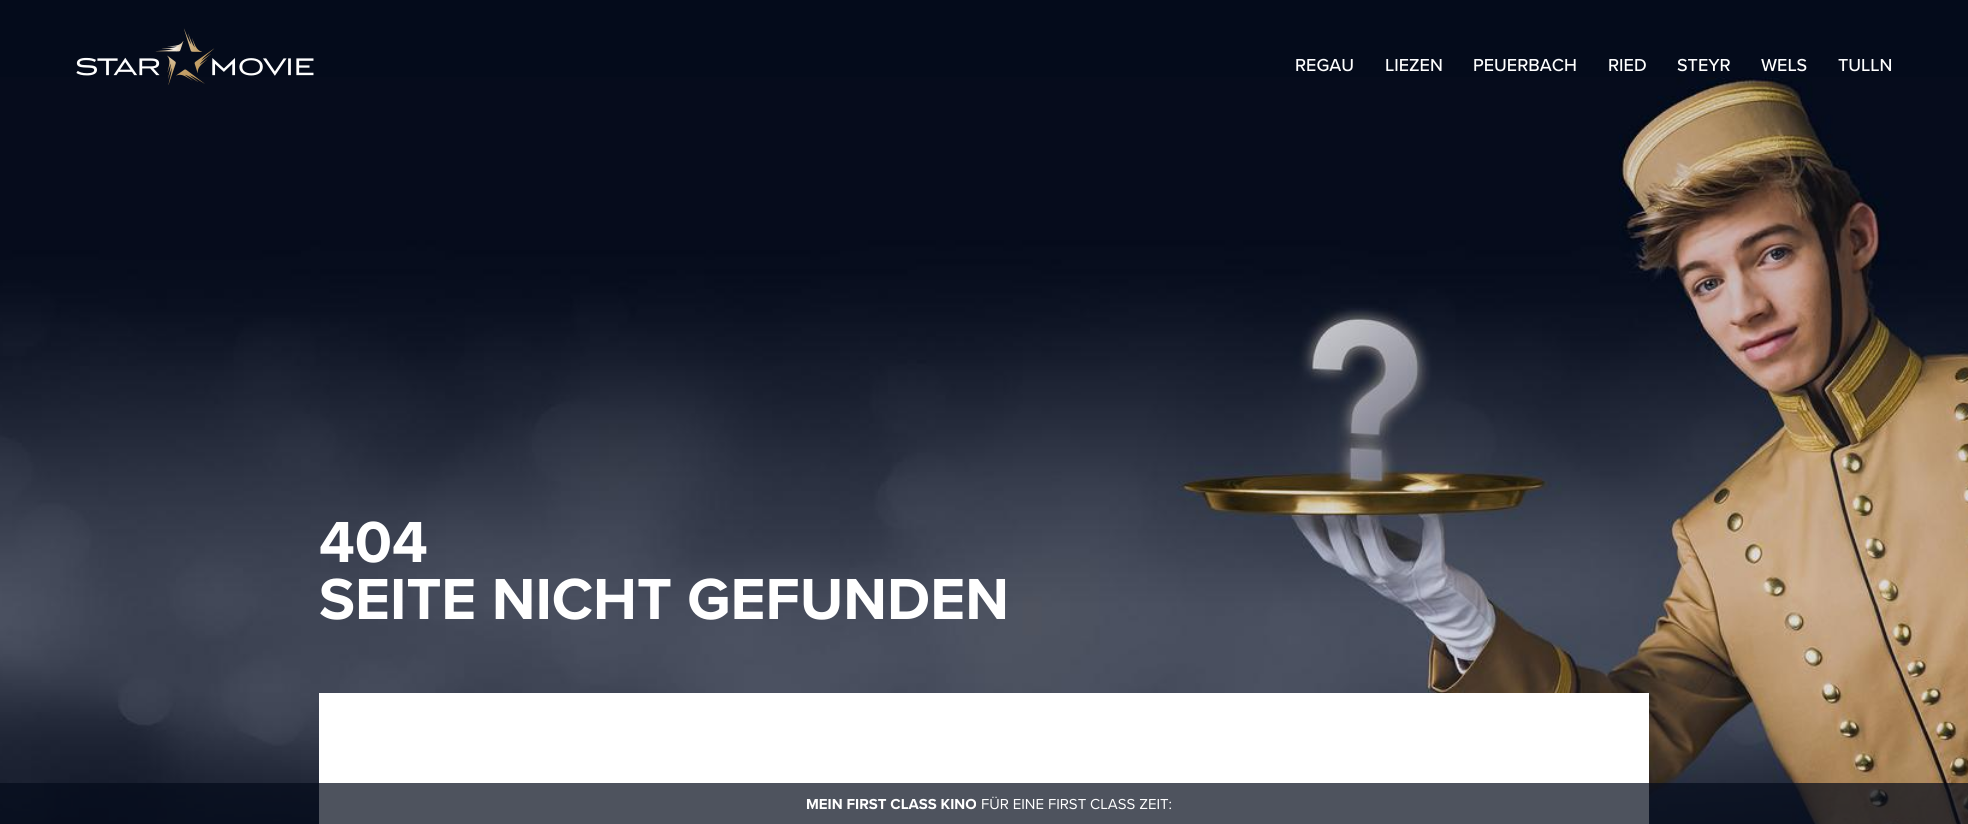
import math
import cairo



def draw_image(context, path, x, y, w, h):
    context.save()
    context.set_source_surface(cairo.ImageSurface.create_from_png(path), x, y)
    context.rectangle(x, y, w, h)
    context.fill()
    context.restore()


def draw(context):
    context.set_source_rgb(4 / 255, 11 / 255, 27 / 255)
    context.paint()
    draw_image(context, "images/2.png", 0, 77, 1968, 747)
    draw_image(context, "images/1.png", 76, 28, 238, 57)
    context.set_source_rgb(1, 1, 1)
    context.rectangle(319, 693, 1330, 131)
    context.fill()
    context.set_source_rgba(4 / 255, 11 / 255, 27 / 255, 0.7)
    context.rectangle(0, 783, 1968, 41)
    context.fill()
    context.select_font_face("Proxima Nova Medium")
    context.set_font_size(18)
    context.set_source_rgb(1, 1, 1)
    context.move_to(1295, 71)
    context.show_text("REGAU")
    context.move_to(1385, 71)
    context.show_text("LIEZEN")
    context.move_to(1473, 71)
    context.show_text("PEUERBACH")
    context.move_to(1608, 71)
    context.show_text("RIED")
    context.move_to(1677, 71)
    context.show_text("STEYR")
    context.move_to(1761, 71)
    context.show_text("WELS")
    context.move_to(1838, 71)
    context.show_text("TULLN")
    context.select_font_face("Proxima Nova", cairo.FontSlant.NORMAL, cairo.FontWeight.BOLD)
    context.set_font_size(60)
    context.move_to(319, 562)
    context.show_text("404")
    context.move_to(319, 619)
    context.show_text("SEITE NICHT GEFUNDEN")
    context.set_font_size(15)
    context.move_to(806, 809)
    context.show_text("MEIN FIRST CLASS KINO")
    context.select_font_face("Proxima Nova")
    context.move_to(981, 809)
    context.show_text("FÜR EINE FIRST CLASS ZEIT:")


surface = cairo.ImageSurface(cairo.Format.RGB24, 1968, 824)
context = cairo.Context(surface)
options = cairo.FontOptions()
options.set_hint_metrics(cairo.HintMetrics.OFF)
options.set_hint_style(cairo.HintStyle.NONE)
context.set_font_options(options)
context.set_miter_limit(4)
draw(context)
surface.write_to_png("out.png")
